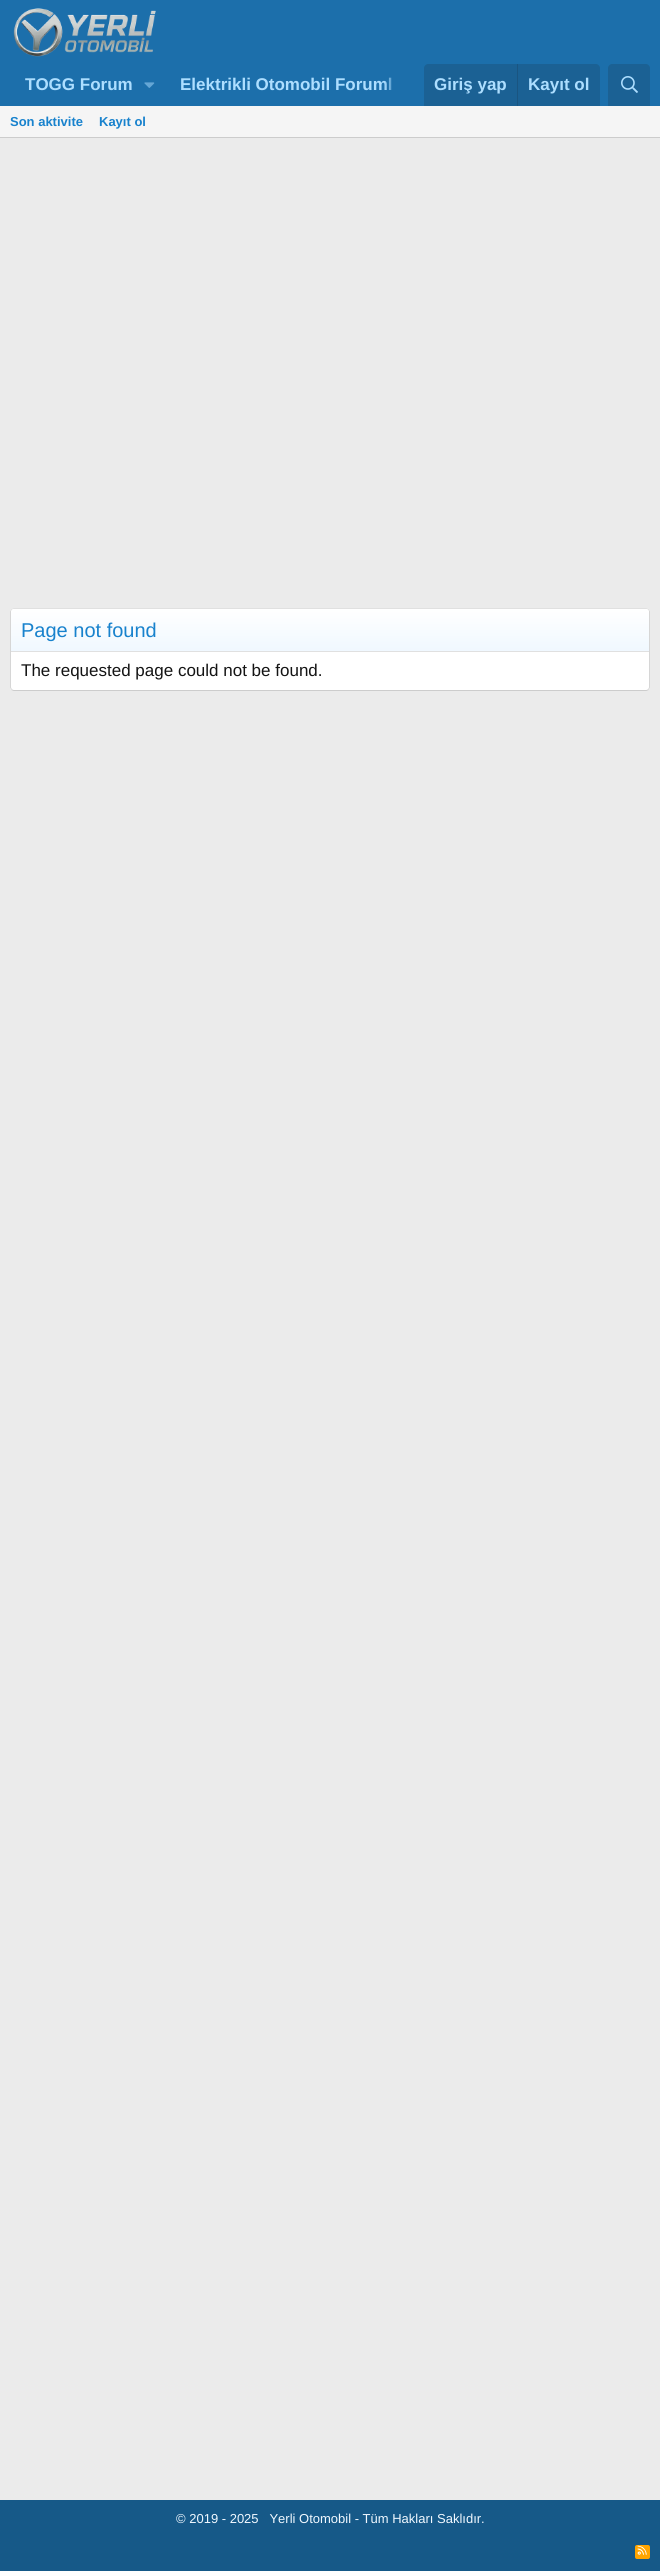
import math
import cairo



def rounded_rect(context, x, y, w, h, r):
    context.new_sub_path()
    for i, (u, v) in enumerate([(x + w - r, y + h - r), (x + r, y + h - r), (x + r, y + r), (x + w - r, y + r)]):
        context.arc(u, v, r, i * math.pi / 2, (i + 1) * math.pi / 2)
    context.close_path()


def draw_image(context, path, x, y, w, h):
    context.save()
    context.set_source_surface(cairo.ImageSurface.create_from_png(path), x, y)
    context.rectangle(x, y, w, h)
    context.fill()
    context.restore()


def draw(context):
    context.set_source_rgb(235 / 255, 235 / 255, 235 / 255)
    context.paint()
    context.set_source_rgb(28 / 255, 111 / 255, 171 / 255)
    context.rectangle(0, 0, 660, 106)
    context.fill()
    draw_image(context, "images/1.png", 13, 8, 143, 49)
    draw_image(context, "images/2.png", 144, 82, 11, 6)
    context.set_source_rgb(27 / 255, 97 / 255, 148 / 255)
    context.new_path()
    context.move_to(428, 64)
    context.line_to(596, 64)
    context.curve_to(598, 64, 600, 66, 600, 68)
    context.line_to(600, 106)
    context.line_to(424, 106)
    context.line_to(424, 68)
    context.curve_to(424, 66, 426, 64, 428, 64)
    context.close_path()
    context.fill()
    context.set_source_rgb(26 / 255, 85 / 255, 129 / 255)
    context.rectangle(517, 64, 1, 42)
    context.fill()
    context.set_source_rgb(27 / 255, 97 / 255, 148 / 255)
    context.new_path()
    context.move_to(612, 64)
    context.line_to(646, 64)
    context.curve_to(648, 64, 650, 66, 650, 68)
    context.line_to(650, 106)
    context.line_to(608, 106)
    context.line_to(608, 68)
    context.curve_to(608, 66, 610, 64, 612, 64)
    context.close_path()
    context.fill()
    draw_image(context, "images/3.png", 621, 76, 17, 17)
    context.set_source_rgb(245 / 255, 245 / 255, 245 / 255)
    context.rectangle(0, 106, 660, 31)
    context.fill()
    context.set_source_rgb(204 / 255, 204 / 255, 204 / 255)
    context.rectangle(0, 137, 660, 1)
    context.fill()
    context.set_source_rgb(1, 1, 1)
    rounded_rect(context, 10, 608, 640, 83, 4)
    context.fill()
    context.new_path()
    context.move_to(11.5, 609.5)
    context.curve_to(12, 609, 13, 608.5, 14, 608.5)
    context.line_to(646, 608.5)
    context.curve_to(647, 608.5, 648, 609, 648.5, 609.5)
    context.set_source_rgb(224 / 255, 224 / 255, 224 / 255)
    context.set_line_width(1)
    context.stroke()
    context.new_path()
    context.move_to(648.5, 609.5)
    context.line_to(649.5, 611.5)
    context.line_to(649.5, 687.5)
    context.line_to(648.5, 689.5)
    context.set_source_rgb(214 / 255, 214 / 255, 214 / 255)
    context.stroke()
    context.new_path()
    context.move_to(648.5, 689.5)
    context.curve_to(648, 690, 647, 690.5, 646, 690.5)
    context.line_to(14, 690.5)
    context.curve_to(13, 690.5, 12, 690, 11.5, 689.5)
    context.set_source_rgb(204 / 255, 204 / 255, 204 / 255)
    context.stroke()
    context.new_path()
    context.move_to(11.5, 689.5)
    context.line_to(10.5, 687.5)
    context.line_to(10.5, 611.5)
    context.line_to(11.5, 609.5)
    context.set_source_rgb(214 / 255, 214 / 255, 214 / 255)
    context.stroke()
    gradient = cairo.LinearGradient(330, 651, 330, 609)
    gradient.add_color_stop_rgba(0, 240 / 255, 248 / 255, 1, 1)
    gradient.add_color_stop_rgba(1, 1, 1, 1, 1)
    context.set_source(gradient)
    context.new_path()
    context.move_to(14, 609)
    context.line_to(646, 609)
    context.curve_to(647.5, 609, 649, 610.5, 649, 612)
    context.line_to(649, 651)
    context.line_to(11, 651)
    context.line_to(11, 612)
    context.curve_to(11, 610.5, 12.5, 609, 14, 609)
    context.close_path()
    context.fill()
    context.set_source_rgb(224 / 255, 224 / 255, 224 / 255)
    context.rectangle(11, 651, 638, 1)
    context.fill()
    context.set_source_rgb(22 / 255, 89 / 255, 136 / 255)
    context.rectangle(0, 2500, 660, 71)
    context.fill()
    context.set_source_rgb(1, 165 / 255, 0)
    rounded_rect(context, 635, 2545, 15, 14, 2)
    context.fill()
    draw_image(context, "images/4.png", 637, 2545, 10, 10)
    context.select_font_face("Liberation Sans", cairo.FontSlant.NORMAL, cairo.FontWeight.BOLD)
    context.set_font_size(17)
    context.set_source_rgb(173 / 255, 222 / 255, 1)
    context.move_to(25, 90)
    context.show_text("TOGG Forum")
    context.move_to(180, 90)
    context.show_text("Elektrikli Otomobil Foruml")
    gradient = cairo.LinearGradient(384, 85, 424, 85)
    gradient.add_color_stop_rgba(0, 28 / 255, 111 / 255, 171 / 255, 0)
    gradient.add_color_stop_rgba(0.33, 28 / 255, 111 / 255, 171 / 255, 1)
    context.set_source(gradient)
    context.rectangle(384, 77, 8, 13)
    context.fill()
    context.set_source_rgb(173 / 255, 222 / 255, 1)
    context.move_to(434, 90)
    context.show_text("Giriş yap")
    context.move_to(528, 90)
    context.show_text("Kayıt ol")
    context.set_font_size(13)
    context.set_source_rgb(24 / 255, 130 / 255, 205 / 255)
    context.move_to(10, 126)
    context.show_text("Son aktivite")
    context.move_to(99, 126)
    context.show_text("Kayıt ol")
    context.select_font_face("Liberation Sans")
    context.set_font_size(20)
    context.move_to(21, 637)
    context.show_text("Page not found")
    context.set_font_size(17)
    context.set_source_rgb(20 / 255, 20 / 255, 20 / 255)
    context.move_to(21, 676)
    context.show_text("The requested page could not be found.")
    context.set_font_size(13)
    context.set_source_rgb(240 / 255, 248 / 255, 1)
    context.move_to(176, 2523)
    context.show_text("© 2019 - 2025   Yerli Otomobil - Tüm Hakları Saklıdır.")


surface = cairo.ImageSurface(cairo.Format.RGB24, 660, 2571)
context = cairo.Context(surface)
options = cairo.FontOptions()
options.set_hint_metrics(cairo.HintMetrics.OFF)
options.set_hint_style(cairo.HintStyle.NONE)
context.set_font_options(options)
context.set_miter_limit(4)
draw(context)
surface.write_to_png("out.png")
